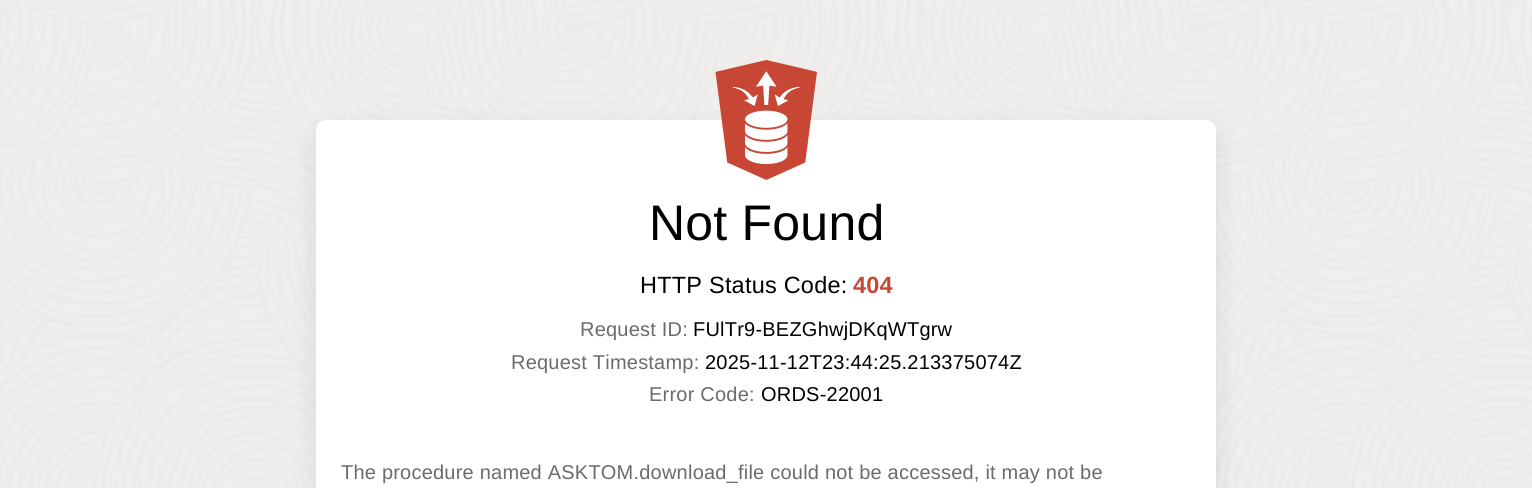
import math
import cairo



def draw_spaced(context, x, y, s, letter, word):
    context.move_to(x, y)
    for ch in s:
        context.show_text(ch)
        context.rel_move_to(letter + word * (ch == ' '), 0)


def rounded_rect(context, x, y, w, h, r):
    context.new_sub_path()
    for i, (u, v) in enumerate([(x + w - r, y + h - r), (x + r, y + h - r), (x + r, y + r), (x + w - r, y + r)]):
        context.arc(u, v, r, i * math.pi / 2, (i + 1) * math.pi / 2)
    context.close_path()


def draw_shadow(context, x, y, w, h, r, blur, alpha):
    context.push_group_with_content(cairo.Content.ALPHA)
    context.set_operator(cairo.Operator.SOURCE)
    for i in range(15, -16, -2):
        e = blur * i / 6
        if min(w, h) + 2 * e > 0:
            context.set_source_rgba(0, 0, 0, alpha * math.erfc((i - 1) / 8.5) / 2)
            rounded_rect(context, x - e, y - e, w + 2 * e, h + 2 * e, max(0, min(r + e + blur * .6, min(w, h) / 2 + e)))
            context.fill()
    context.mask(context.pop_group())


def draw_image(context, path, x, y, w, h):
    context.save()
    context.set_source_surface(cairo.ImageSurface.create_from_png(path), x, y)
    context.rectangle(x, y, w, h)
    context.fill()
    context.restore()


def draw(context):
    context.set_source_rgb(1, 1, 1)
    context.paint()
    draw_image(context, "images/1.png", 0, 0, 1532, 488)
    context.set_source_rgb(0, 0, 0)
    draw_shadow(context, 316, 130, 900, 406, 10, 12.5, 0.1)
    context.set_source_rgb(1, 1, 1)
    rounded_rect(context, 316, 120, 900, 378, 10)
    context.fill()
    draw_image(context, "images/2.png", 715, 60, 102, 120)
    context.select_font_face("Liberation Sans")
    context.set_font_size(50)
    context.set_source_rgb(0, 0, 0)
    draw_spaced(context, 649, 240, "Not Found", 0.22, 0)
    context.set_font_size(23.5)
    draw_spaced(context, 640, 293, "HTTP Status Code:", 0.22, 0)
    context.select_font_face("Liberation Sans", cairo.FontSlant.NORMAL, cairo.FontWeight.BOLD)
    context.set_source_rgb(199 / 255, 73 / 255, 52 / 255)
    draw_spaced(context, 853, 293, "404", 0.22, 0)
    context.select_font_face("Liberation Sans")
    context.set_font_size(20)
    context.set_source_rgb(107 / 255, 107 / 255, 107 / 255)
    draw_spaced(context, 580, 336, "Request ID:", 0.22, 0)
    context.set_source_rgb(0, 0, 0)
    draw_spaced(context, 693, 336, "FUlTr9-BEZGhwjDKqWTgrw", 0.22, 0)
    context.set_source_rgb(107 / 255, 107 / 255, 107 / 255)
    draw_spaced(context, 511, 369, "Request Timestamp:", 0.22, 0)
    context.set_source_rgb(0, 0, 0)
    draw_spaced(context, 705, 369, "2025-11-12T23:44:25.213375074Z", 0.22, 0)
    context.set_source_rgb(107 / 255, 107 / 255, 107 / 255)
    draw_spaced(context, 649, 401, "Error Code:", 0.22, 0)
    context.set_source_rgb(0, 0, 0)
    draw_spaced(context, 761, 401, "ORDS-22001", 0.22, 0)
    context.set_source_rgb(107 / 255, 107 / 255, 107 / 255)
    draw_spaced(context, 341, 479, "The procedure named ASKTOM.download_file could not be accessed, it may not be", 0.22, 0)


surface = cairo.ImageSurface(cairo.Format.RGB24, 1532, 488)
context = cairo.Context(surface)
options = cairo.FontOptions()
options.set_hint_metrics(cairo.HintMetrics.OFF)
options.set_hint_style(cairo.HintStyle.NONE)
context.set_font_options(options)
context.set_miter_limit(4)
draw(context)
surface.write_to_png("out.png")
